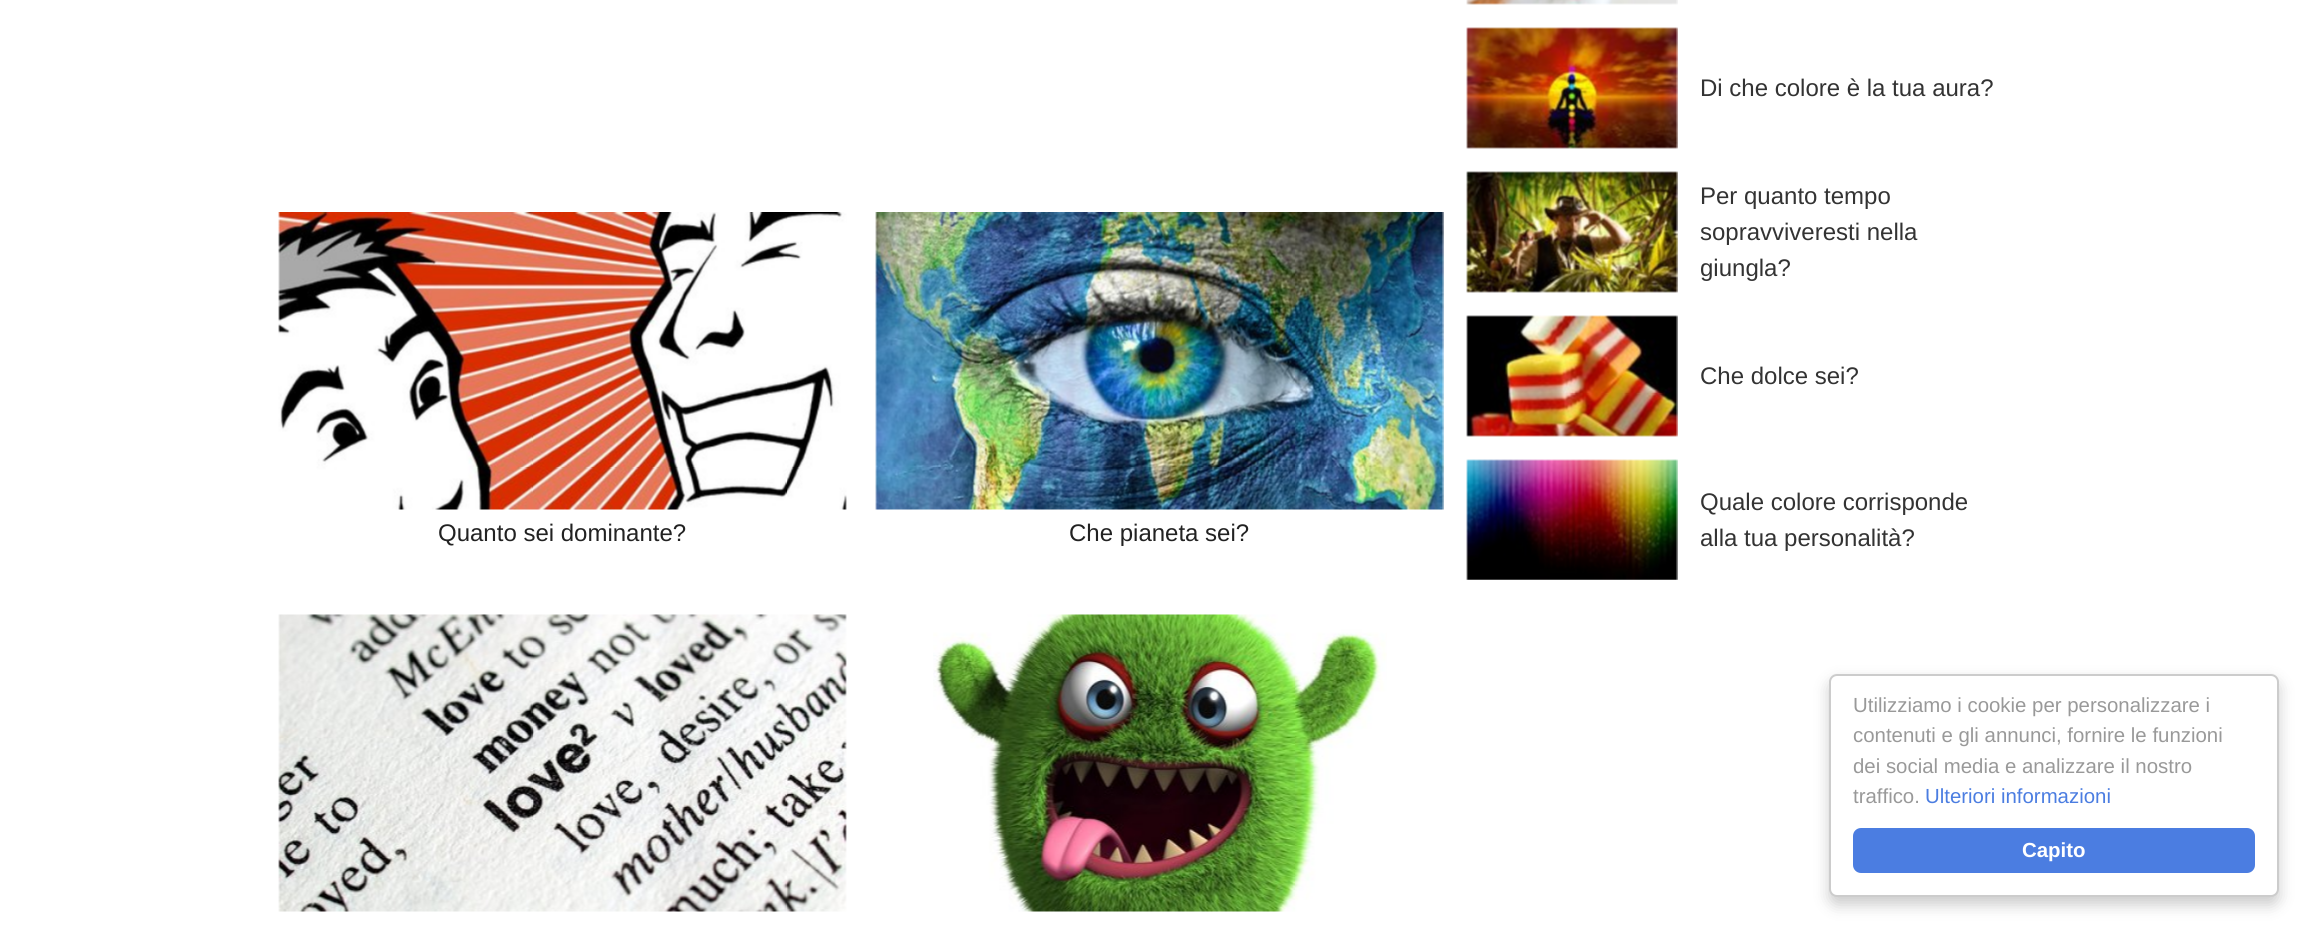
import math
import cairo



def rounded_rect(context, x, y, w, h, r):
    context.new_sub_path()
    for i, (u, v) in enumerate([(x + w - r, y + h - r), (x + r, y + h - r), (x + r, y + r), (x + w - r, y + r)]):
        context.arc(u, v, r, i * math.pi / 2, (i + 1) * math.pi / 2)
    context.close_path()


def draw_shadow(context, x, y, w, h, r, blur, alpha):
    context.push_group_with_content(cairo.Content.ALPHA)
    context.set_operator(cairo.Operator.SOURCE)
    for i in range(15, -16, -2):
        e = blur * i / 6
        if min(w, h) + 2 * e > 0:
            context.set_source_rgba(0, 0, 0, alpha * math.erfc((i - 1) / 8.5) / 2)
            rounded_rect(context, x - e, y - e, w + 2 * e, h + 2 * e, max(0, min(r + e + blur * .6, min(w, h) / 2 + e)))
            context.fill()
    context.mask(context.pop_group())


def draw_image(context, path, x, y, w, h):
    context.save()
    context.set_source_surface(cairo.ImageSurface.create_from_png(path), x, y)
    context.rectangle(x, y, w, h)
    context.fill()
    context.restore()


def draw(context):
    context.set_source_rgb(1, 1, 1)
    context.paint()
    draw_image(context, "images/1.png", 278, 212, 569, 298)
    draw_image(context, "images/2.png", 875, 212, 569, 298)
    draw_image(context, "images/3.png", 278, 614, 569, 298)
    draw_image(context, "images/4.png", 933, 614, 454, 298)
    draw_image(context, "images/5.png", 1466, 0, 212, 5)
    draw_image(context, "images/6.png", 1466, 27, 212, 122)
    draw_image(context, "images/7.png", 1466, 171, 212, 122)
    draw_image(context, "images/8.png", 1466, 315, 212, 122)
    draw_image(context, "images/9.png", 1466, 459, 212, 121)
    context.set_source_rgb(0, 0, 0)
    draw_shadow(context, 1829, 681, 450, 224, 8, 7.5, 0.2)
    context.set_source_rgb(1, 1, 1)
    rounded_rect(context, 1830, 675, 448, 221, 7)
    context.fill_preserve()
    context.set_source_rgb(204 / 255, 204 / 255, 204 / 255)
    context.stroke()
    context.set_source_rgb(75 / 255, 125 / 255, 225 / 255)
    rounded_rect(context, 1853, 828, 402, 45, 8)
    context.fill()
    context.select_font_face("Liberation Sans")
    context.set_font_size(24)
    context.set_source_rgb(34 / 255, 34 / 255, 34 / 255)
    context.move_to(438, 541)
    context.show_text("Quanto sei dominante?")
    context.move_to(1069, 541)
    context.show_text("Che pianeta sei?")
    context.set_source_rgb(51 / 255, 51 / 255, 51 / 255)
    context.move_to(1700, 96)
    context.show_text("Di che colore è la tua aura?")
    context.move_to(1700, 204)
    context.show_text("Per quanto tempo")
    context.move_to(1700, 240)
    context.show_text("sopravviveresti nella")
    context.move_to(1700, 276)
    context.show_text("giungla?")
    context.move_to(1700, 384)
    context.show_text("Che dolce sei?")
    context.move_to(1700, 510)
    context.show_text("Quale colore corrisponde")
    context.move_to(1700, 546)
    context.show_text("alla tua personalità?")
    context.set_font_size(20.4)
    context.set_source_rgb(153 / 255, 153 / 255, 153 / 255)
    context.move_to(1853, 712)
    context.show_text("Utilizziamo i cookie per personalizzare i")
    context.move_to(1853, 742)
    context.show_text("contenuti e gli annunci, fornire le funzioni")
    context.move_to(1853, 773)
    context.show_text("dei social media e analizzare il nostro")
    context.move_to(1853, 803)
    context.show_text("traffico.")
    context.set_source_rgb(75 / 255, 125 / 255, 225 / 255)
    context.move_to(1925, 803)
    context.show_text("Ulteriori informazioni")
    context.select_font_face("Liberation Sans", cairo.FontSlant.NORMAL, cairo.FontWeight.BOLD)
    context.set_source_rgb(1, 1, 1)
    context.move_to(2022, 857)
    context.show_text("Capito")


surface = cairo.ImageSurface(cairo.Format.RGB24, 2308, 927)
context = cairo.Context(surface)
options = cairo.FontOptions()
options.set_hint_metrics(cairo.HintMetrics.OFF)
options.set_hint_style(cairo.HintStyle.NONE)
context.set_font_options(options)
context.set_miter_limit(4)
draw(context)
surface.write_to_png("out.png")
